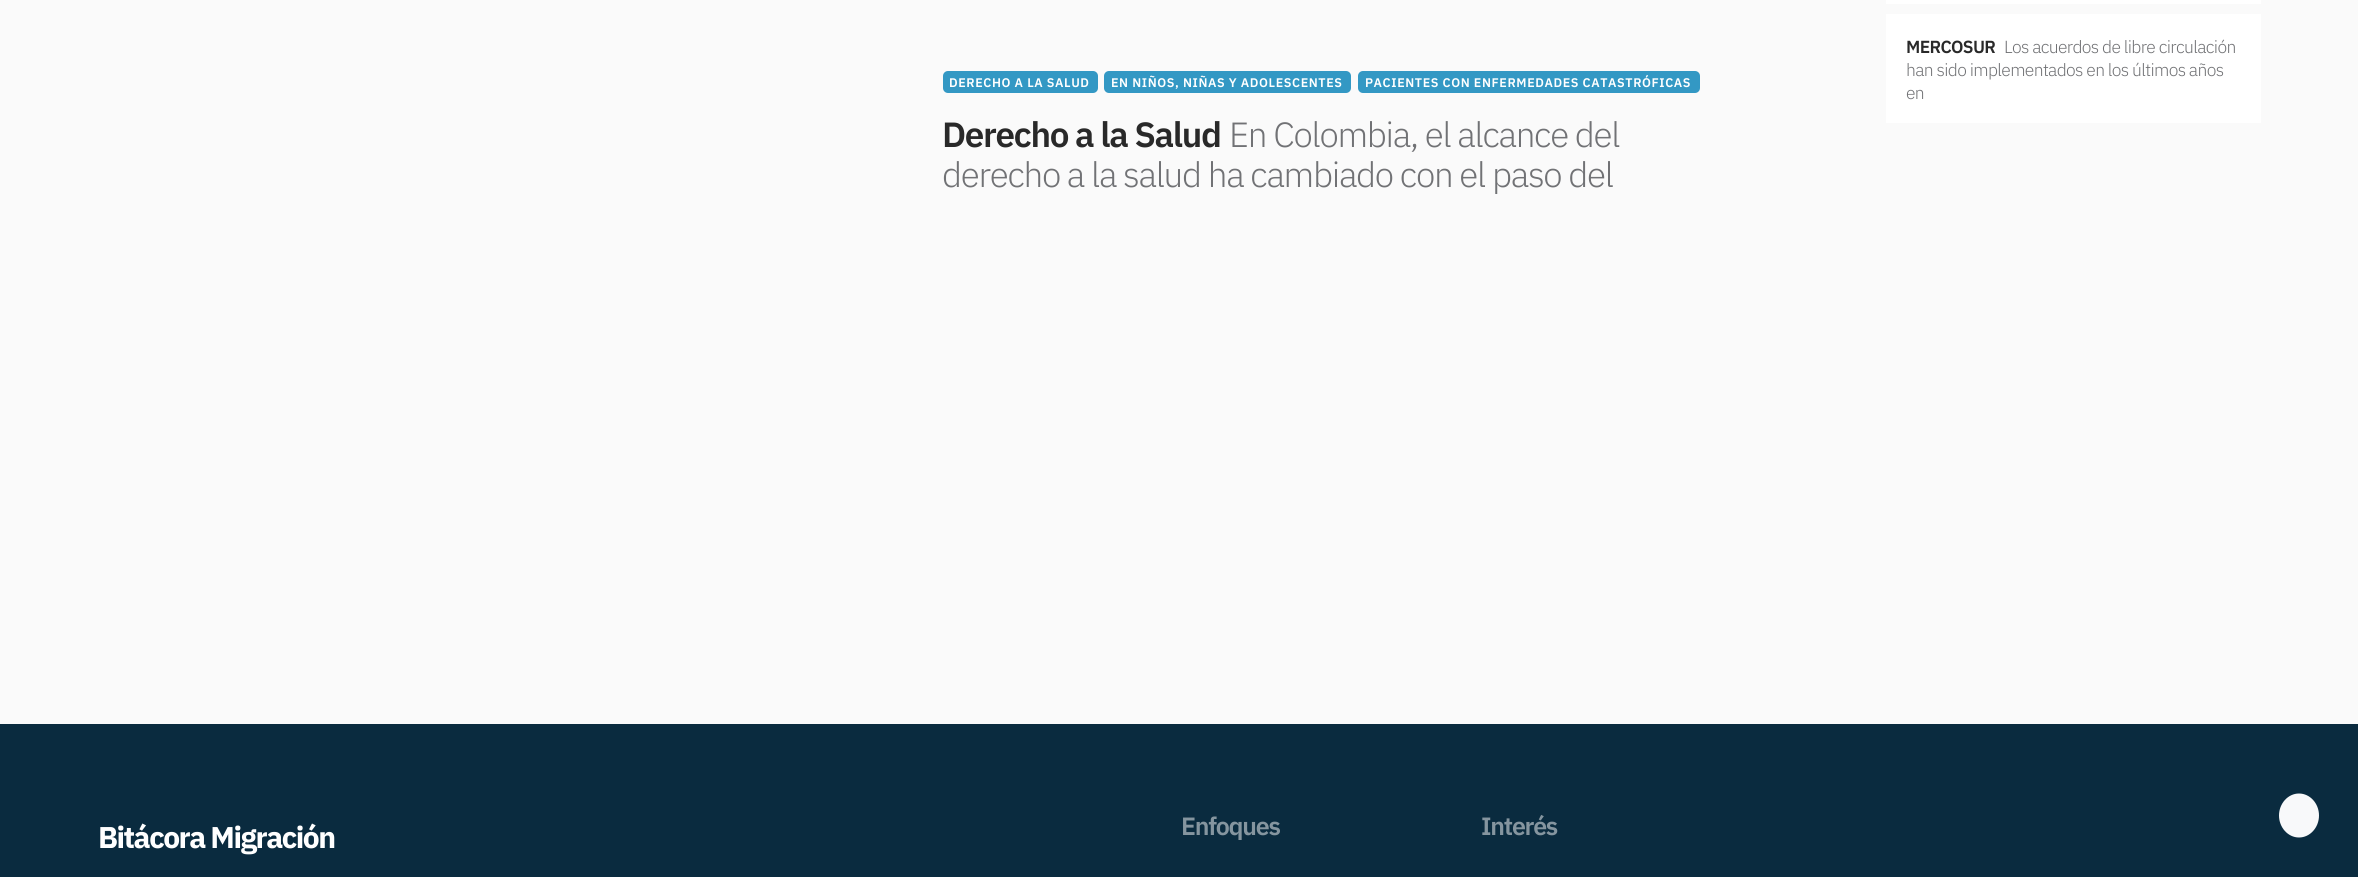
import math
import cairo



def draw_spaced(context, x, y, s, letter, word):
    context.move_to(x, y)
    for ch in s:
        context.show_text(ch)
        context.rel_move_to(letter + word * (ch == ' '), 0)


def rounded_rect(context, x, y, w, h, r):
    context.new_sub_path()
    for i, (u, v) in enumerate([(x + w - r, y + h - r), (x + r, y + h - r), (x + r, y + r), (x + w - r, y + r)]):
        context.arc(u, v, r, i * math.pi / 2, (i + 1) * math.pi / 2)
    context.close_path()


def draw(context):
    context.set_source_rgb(250 / 255, 250 / 255, 250 / 255)
    context.paint()
    context.set_source_rgb(51 / 255, 152 / 255, 196 / 255)
    rounded_rect(context, 943, 71, 155, 22, 5)
    context.fill()
    rounded_rect(context, 1104, 71, 247, 22, 5)
    context.fill()
    rounded_rect(context, 1358, 71, 342, 22, 5)
    context.fill()
    context.set_source_rgb(1, 1, 1)
    context.rectangle(1886, 0, 375, 4)
    context.fill()
    context.rectangle(1886, 14, 375, 109)
    context.fill()
    context.set_source_rgb(10 / 255, 43 / 255, 63 / 255)
    context.rectangle(0, 724, 2358, 153)
    context.fill()
    context.set_source_rgb(248 / 255, 249 / 255, 250 / 255)
    context.new_path()
    context.move_to(2299, 793.5)
    context.curve_to(2310, 793.5, 2319, 803.5, 2319, 815.5)
    context.curve_to(2319, 827.5, 2310, 837.5, 2299, 837.5)
    context.curve_to(2288, 837.5, 2279, 827.5, 2279, 815.5)
    context.curve_to(2279, 803.5, 2288, 793.5, 2299, 793.5)
    context.close_path()
    context.fill()
    context.select_font_face("IBM Plex Sans SemiBold")
    context.set_font_size(12.5)
    context.set_source_rgb(1, 1, 1)
    draw_spaced(context, 949, 87, "DERECHO A LA SALUD", 0.6, 0)
    draw_spaced(context, 1111, 87, "EN NIÑOS, NIÑAS Y ADOLESCENTES", 0.6, 0)
    draw_spaced(context, 1365, 87, "PACIENTES CON ENFERMEDADES CATASTRÓFICAS", 0.6, 0)
    context.set_font_size(35)
    context.set_source_rgb(41 / 255, 41 / 255, 41 / 255)
    draw_spaced(context, 942, 147, "Derecho a la Salud", -1.3, 0)
    context.select_font_face("IBM Plex Sans Light")
    context.set_source_rgb(113 / 255, 114 / 255, 117 / 255)
    draw_spaced(context, 1229, 147, "En Colombia, el alcance del", -1.3, 0)
    draw_spaced(context, 942, 187, "derecho a la salud ha cambiado con el paso del", -1.3, 0)
    context.select_font_face("IBM Plex Sans SemiBold")
    context.set_font_size(17.5)
    context.set_source_rgb(41 / 255, 41 / 255, 41 / 255)
    draw_spaced(context, 1906, 53, "MERCOSUR", -0.65, 0)
    context.select_font_face("IBM Plex Sans Light")
    context.set_source_rgb(113 / 255, 114 / 255, 117 / 255)
    draw_spaced(context, 2004, 53, "Los acuerdos de libre circulación", -0.65, 0)
    draw_spaced(context, 1906, 76, "han sido implementados en los últimos años", -0.65, 0)
    draw_spaced(context, 1906, 99, "en", -0.65, 0)
    context.select_font_face("IBM Plex Sans", cairo.FontSlant.NORMAL, cairo.FontWeight.BOLD)
    context.set_font_size(30)
    context.set_source_rgb(1, 1, 1)
    draw_spaced(context, 98, 848, "Bitácora Migración", -1.5, 0)
    context.select_font_face("IBM Plex Sans SemiBold")
    context.set_font_size(25)
    context.set_source_rgb(133 / 255, 149 / 255, 159 / 255)
    draw_spaced(context, 1181, 835, "Enfoques", -1.25, 0)
    draw_spaced(context, 1481, 835, "Interés", -1.25, 0)


surface = cairo.ImageSurface(cairo.Format.RGB24, 2358, 877)
context = cairo.Context(surface)
options = cairo.FontOptions()
options.set_hint_metrics(cairo.HintMetrics.OFF)
options.set_hint_style(cairo.HintStyle.NONE)
context.set_font_options(options)
context.set_miter_limit(4)
draw(context)
surface.write_to_png("out.png")
